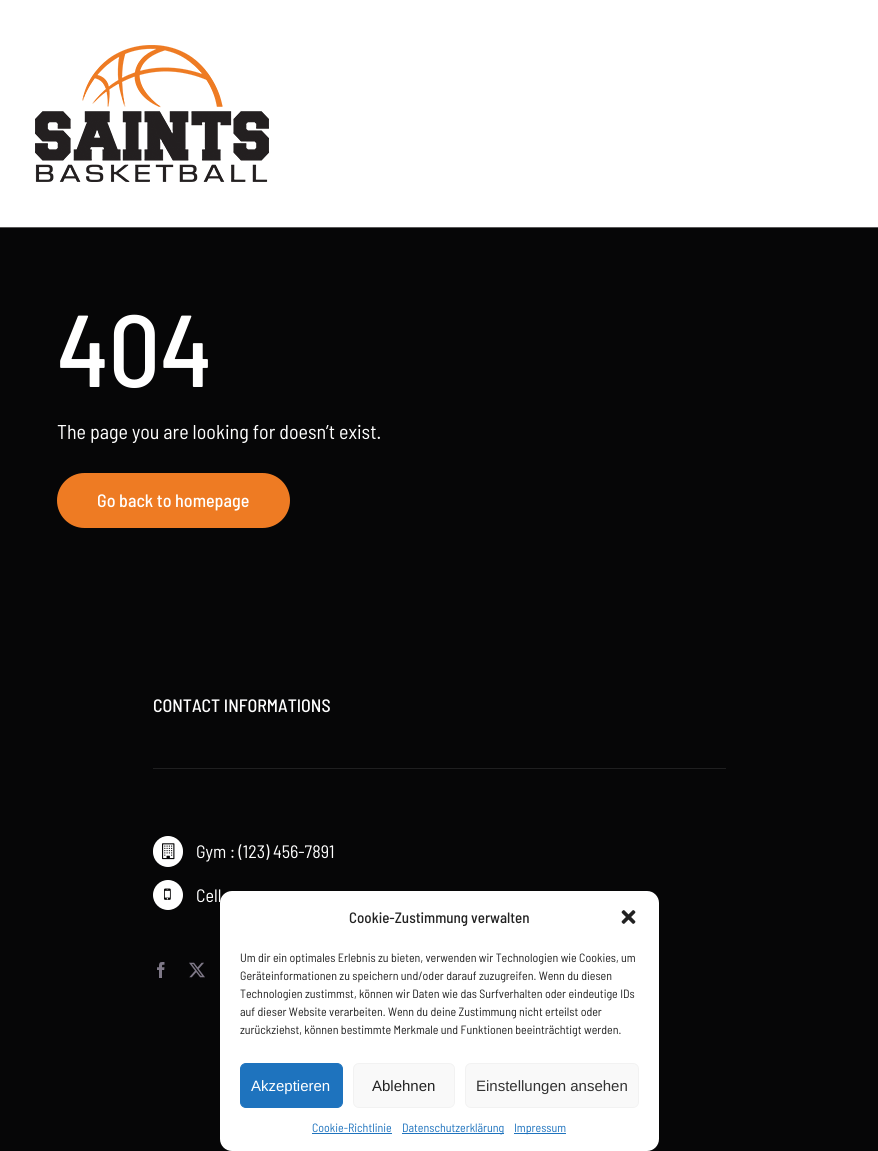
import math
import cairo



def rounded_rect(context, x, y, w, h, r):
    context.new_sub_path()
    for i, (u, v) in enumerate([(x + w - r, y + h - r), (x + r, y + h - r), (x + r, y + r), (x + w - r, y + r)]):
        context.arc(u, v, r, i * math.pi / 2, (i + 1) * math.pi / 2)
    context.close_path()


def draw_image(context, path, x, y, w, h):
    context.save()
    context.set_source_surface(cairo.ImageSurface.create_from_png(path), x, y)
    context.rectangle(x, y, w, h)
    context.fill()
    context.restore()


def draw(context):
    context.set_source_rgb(1, 1, 1)
    context.paint()
    context.set_source_rgb(89 / 255, 88 / 255, 89 / 255)
    context.rectangle(0, 227, 878, 1)
    context.fill()
    draw_image(context, "images/1.png", 35, 45, 234, 137)
    context.set_source_rgb(6 / 255, 6 / 255, 7 / 255)
    context.rectangle(0, 228, 878, 923)
    context.fill()
    context.set_source_rgb(238 / 255, 123 / 255, 35 / 255)
    rounded_rect(context, 57, 473, 233, 55, 27.5)
    context.fill()
    context.set_source_rgb(31 / 255, 31 / 255, 32 / 255)
    context.rectangle(153, 768, 573, 1)
    context.fill()
    context.set_source_rgb(1, 1, 1)
    rounded_rect(context, 153, 836, 30, 31, 15)
    context.fill()
    draw_image(context, "images/2.png", 162, 843, 13, 17)
    context.arc(168, 895, 15, 0, 2 * math.pi)
    context.fill()
    draw_image(context, "images/3.png", 164, 888, 7, 12)
    draw_image(context, "images/4.png", 157, 962, 8, 16)
    draw_image(context, "images/5.png", 189, 962, 16, 16)
    rounded_rect(context, 220, 891, 439, 260, 12)
    context.fill()
    draw_image(context, "images/6.png", 621, 910, 15, 14)
    context.set_source_rgb(30 / 255, 115 / 255, 190 / 255)
    rounded_rect(context, 240.5, 1063.5, 102, 44, 5.5)
    context.fill_preserve()
    context.set_line_width(1)
    context.stroke()
    context.set_source_rgb(249 / 255, 249 / 255, 249 / 255)
    rounded_rect(context, 353.5, 1063.5, 101, 44, 5.5)
    context.fill_preserve()
    context.set_source_rgb(242 / 255, 242 / 255, 242 / 255)
    context.stroke()
    context.set_source_rgb(249 / 255, 249 / 255, 249 / 255)
    rounded_rect(context, 465.5, 1063.5, 173, 44, 5.5)
    context.fill_preserve()
    context.set_source_rgb(242 / 255, 242 / 255, 242 / 255)
    context.stroke()
    context.set_source_rgb(30 / 255, 115 / 255, 190 / 255)
    context.rectangle(312, 1133, 80, 1)
    context.fill()
    context.rectangle(402, 1133, 102, 1)
    context.fill()
    context.rectangle(514, 1133, 52, 1)
    context.fill()
    context.select_font_face("Barlow Semi Condensed Medium")
    context.set_font_size(102)
    context.set_source_rgb(1, 1, 1)
    context.move_to(57, 387)
    context.show_text("404")
    context.select_font_face("Barlow Semi Condensed")
    context.set_font_size(20)
    context.move_to(57, 439)
    context.show_text("The page you are looking for doesn’t exist.")
    context.select_font_face("Barlow Semi Condensed Medium")
    context.set_font_size(18)
    context.move_to(97, 507)
    context.show_text("Go back to homepage")
    context.move_to(153, 712)
    context.show_text("CONTACT INFORMATIONS")
    context.select_font_face("Barlow Semi Condensed")
    context.move_to(196, 858)
    context.show_text("Gym : (123) 456-7891")
    context.move_to(196, 902)
    context.show_text("Cell")
    context.select_font_face("Barlow Semi Condensed Medium")
    context.set_font_size(15)
    context.set_source_rgb(34 / 255, 34 / 255, 34 / 255)
    context.move_to(349, 923)
    context.show_text("Cookie-Zustimmung verwalten")
    context.select_font_face("Barlow Semi Condensed")
    context.set_font_size(12)
    context.move_to(240, 962)
    context.show_text("Um dir ein optimales Erlebnis zu bieten, verwenden wir Technologien wie Cookies, um")
    context.move_to(240, 980)
    context.show_text("Geräteinformationen zu speichern und/oder darauf zuzugreifen. Wenn du diesen")
    context.move_to(240, 998)
    context.show_text("Technologien zustimmst, können wir Daten wie das Surfverhalten oder eindeutige IDs")
    context.move_to(240, 1016)
    context.show_text("auf dieser Website verarbeiten. Wenn du deine Zustimmung nicht erteilst oder")
    context.move_to(240, 1034)
    context.show_text("zurückziehst, können bestimmte Merkmale und Funktionen beeinträchtigt werden.")
    context.select_font_face("Liberation Sans")
    context.set_font_size(15)
    context.set_source_rgb(1, 1, 1)
    context.move_to(251, 1091)
    context.show_text("Akzeptieren")
    context.set_source_rgb(34 / 255, 34 / 255, 34 / 255)
    context.move_to(372, 1091)
    context.show_text("Ablehnen")
    context.set_source_rgb(51 / 255, 51 / 255, 51 / 255)
    context.move_to(476, 1091)
    context.show_text("Einstellungen ansehen")
    context.select_font_face("Barlow Semi Condensed")
    context.set_font_size(12)
    context.set_source_rgb(30 / 255, 115 / 255, 190 / 255)
    context.move_to(312, 1132)
    context.show_text("Cookie-Richtlinie")
    context.move_to(402, 1132)
    context.show_text("Datenschutzerklärung")
    context.move_to(514, 1132)
    context.show_text("Impressum")


surface = cairo.ImageSurface(cairo.Format.RGB24, 878, 1151)
context = cairo.Context(surface)
options = cairo.FontOptions()
options.set_hint_metrics(cairo.HintMetrics.OFF)
options.set_hint_style(cairo.HintStyle.NONE)
context.set_font_options(options)
context.set_miter_limit(4)
draw(context)
surface.write_to_png("out.png")
